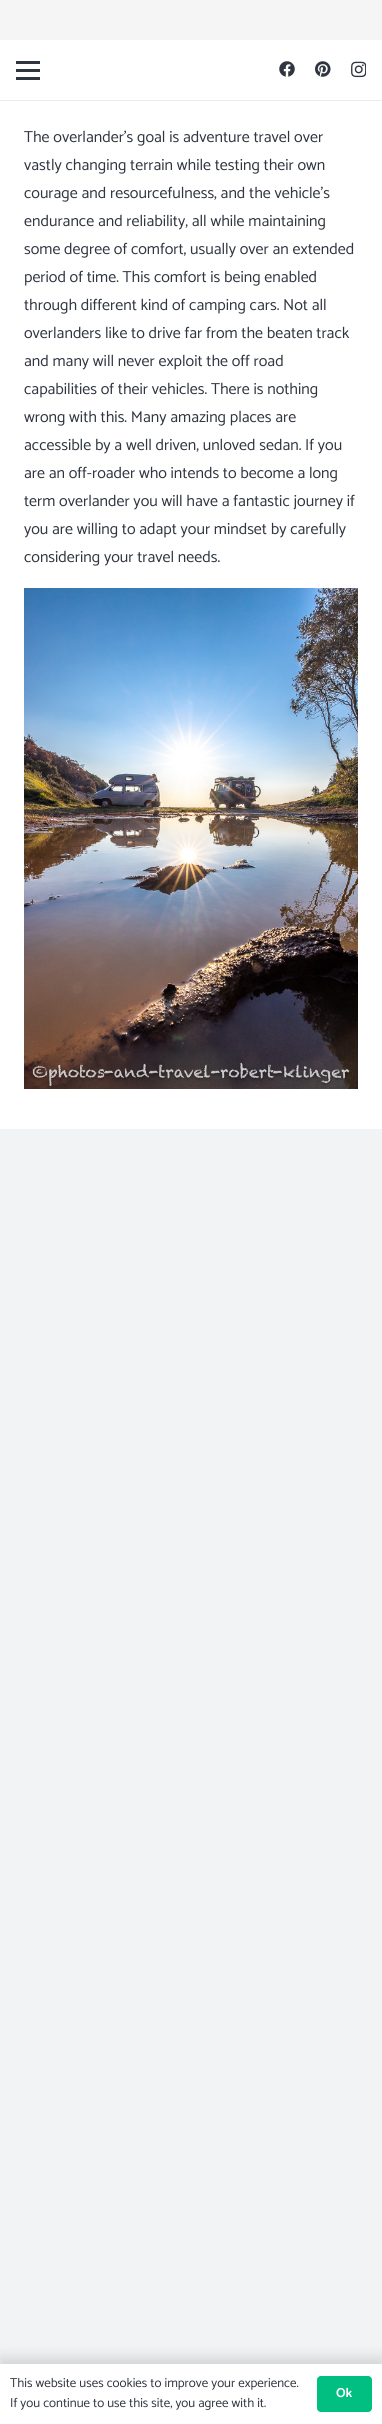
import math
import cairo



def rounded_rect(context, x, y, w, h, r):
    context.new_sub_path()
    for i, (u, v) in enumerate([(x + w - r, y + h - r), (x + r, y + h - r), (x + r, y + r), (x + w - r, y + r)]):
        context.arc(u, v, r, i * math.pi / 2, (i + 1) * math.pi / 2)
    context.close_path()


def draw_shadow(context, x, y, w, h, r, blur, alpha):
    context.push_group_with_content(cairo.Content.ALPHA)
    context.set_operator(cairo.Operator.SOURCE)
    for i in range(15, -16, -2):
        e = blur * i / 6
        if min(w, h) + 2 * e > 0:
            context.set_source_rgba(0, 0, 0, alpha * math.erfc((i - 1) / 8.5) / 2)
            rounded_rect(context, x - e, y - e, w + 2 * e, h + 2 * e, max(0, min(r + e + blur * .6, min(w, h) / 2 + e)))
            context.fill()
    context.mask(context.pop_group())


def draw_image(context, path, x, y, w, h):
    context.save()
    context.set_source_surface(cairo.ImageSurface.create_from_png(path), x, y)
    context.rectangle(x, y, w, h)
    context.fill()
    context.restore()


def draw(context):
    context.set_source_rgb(242 / 255, 243 / 255, 245 / 255)
    context.paint()
    context.set_source_rgb(1, 1, 1)
    context.rectangle(0, 40, 382, 1089)
    context.fill()
    context.set_source_rgb(245 / 255, 245 / 255, 245 / 255)
    context.rectangle(0, 0, 382, 40)
    context.fill()
    context.set_source_rgb(235 / 255, 235 / 255, 235 / 255)
    context.rectangle(0, 100, 382, 1)
    context.fill()
    context.set_source_rgb(48 / 255, 54 / 255, 64 / 255)
    context.rectangle(16, 69, 24, 3)
    context.fill()
    context.rectangle(16, 61, 24, 3)
    context.fill()
    context.rectangle(16, 77, 24, 3)
    context.fill()
    draw_image(context, "images/1.png", 279, 61, 16, 16)
    draw_image(context, "images/2.png", 315, 61, 16, 16)
    draw_image(context, "images/3.png", 351, 61, 15, 17)
    draw_image(context, "images/4.png", 24, 588, 334, 501)
    context.set_source_rgb(0, 0, 0)
    draw_shadow(context, 0, 2359, 382, 60, 0, 7.5, 0.15)
    context.set_source_rgb(1, 1, 1)
    context.rectangle(0, 2364, 382, 60)
    context.fill()
    context.set_source_rgb(0, 191 / 255, 128 / 255)
    rounded_rect(context, 317, 2376, 55, 36, 4)
    context.fill()
    context.select_font_face("Catamaran")
    context.set_font_size(16)
    context.set_source_rgb(48 / 255, 54 / 255, 64 / 255)
    context.move_to(24, 142)
    context.show_text("The overlander’s goal is adventure travel over")
    context.move_to(24, 170)
    context.show_text("vastly changing terrain while testing their own")
    context.move_to(24, 198)
    context.show_text("courage and resourcefulness, and the vehicle’s")
    context.move_to(24, 226)
    context.show_text("endurance and reliability, all while maintaining")
    context.move_to(24, 254)
    context.show_text("some degree of comfort, usually over an extended")
    context.move_to(24, 282)
    context.show_text("period of time. This comfort is being enabled")
    context.move_to(24, 310)
    context.show_text("through different kind of camping cars. Not all")
    context.move_to(24, 338)
    context.show_text("overlanders like to drive far from the beaten track")
    context.move_to(24, 366)
    context.show_text("and many will never exploit the off road")
    context.move_to(24, 394)
    context.show_text("capabilities of their vehicles. There is nothing")
    context.move_to(24, 422)
    context.show_text("wrong with this. Many amazing places are")
    context.move_to(24, 450)
    context.show_text("accessible by a well driven, unloved sedan. If you")
    context.move_to(24, 478)
    context.show_text("are an off-roader who intends to become a long")
    context.move_to(24, 506)
    context.show_text("term overlander you will have a fantastic journey if")
    context.move_to(24, 534)
    context.show_text("you are willing to adapt your mindset by carefully")
    context.move_to(24, 562)
    context.show_text("considering your travel needs.")
    context.set_font_size(13)
    context.move_to(10, 2387)
    context.show_text("This website uses cookies to improve your experience.")
    context.move_to(10, 2407)
    context.show_text("If you continue to use this site, you agree with it.")
    context.select_font_face("Catamaran", cairo.FontSlant.NORMAL, cairo.FontWeight.BOLD)
    context.set_source_rgb(1, 1, 1)
    context.move_to(336, 2397)
    context.show_text("Ok")


surface = cairo.ImageSurface(cairo.Format.RGB24, 382, 2424)
context = cairo.Context(surface)
options = cairo.FontOptions()
options.set_hint_metrics(cairo.HintMetrics.OFF)
options.set_hint_style(cairo.HintStyle.NONE)
context.set_font_options(options)
context.set_miter_limit(4)
draw(context)
surface.write_to_png("out.png")
